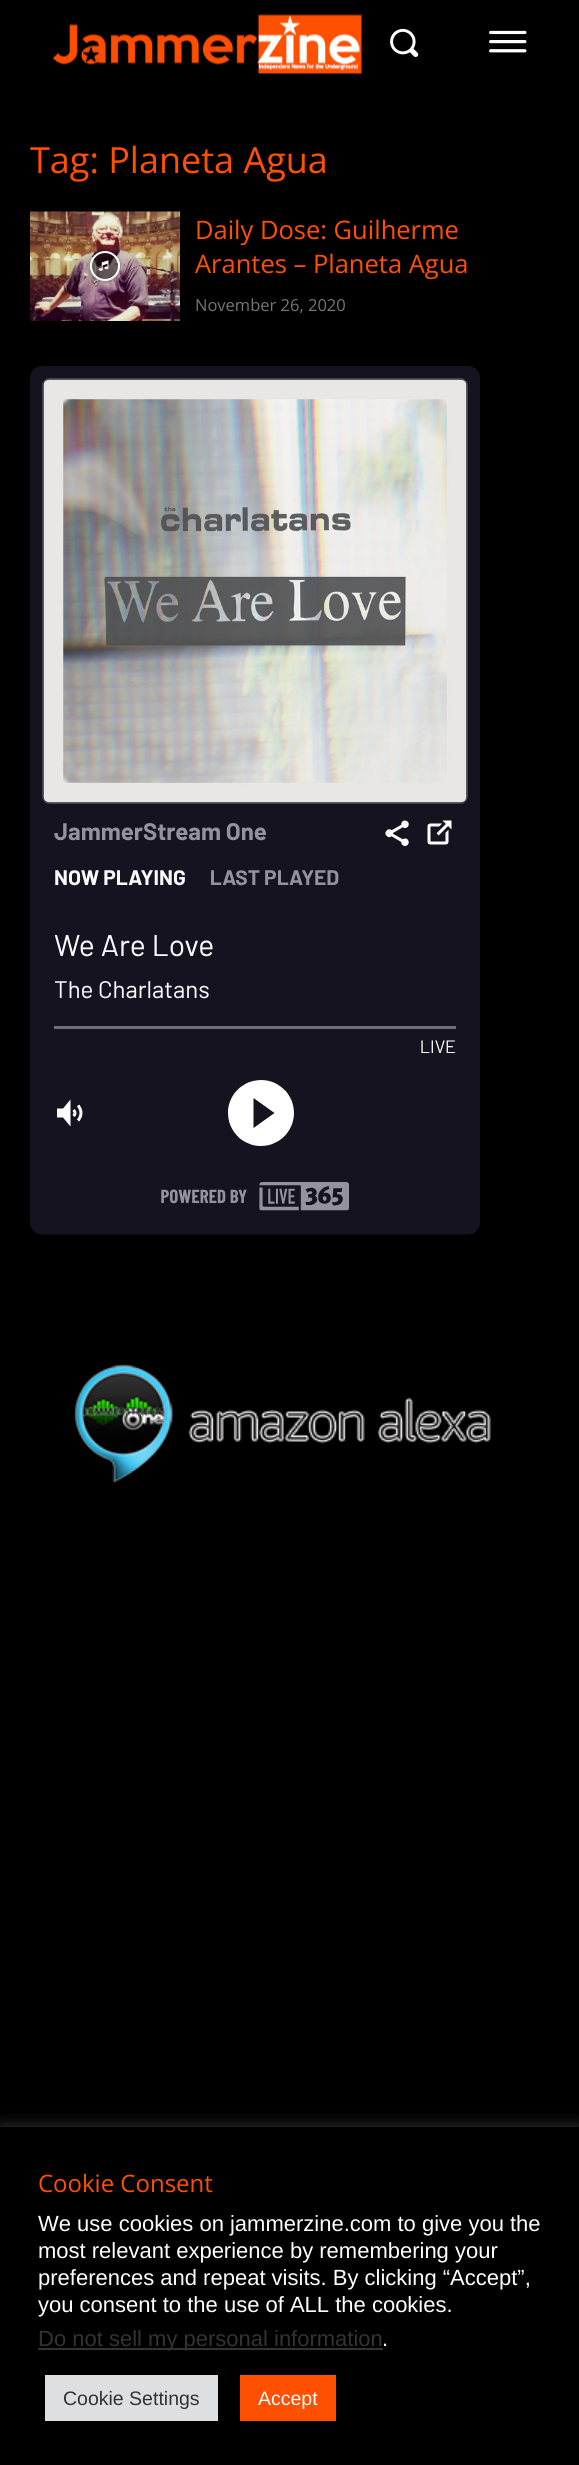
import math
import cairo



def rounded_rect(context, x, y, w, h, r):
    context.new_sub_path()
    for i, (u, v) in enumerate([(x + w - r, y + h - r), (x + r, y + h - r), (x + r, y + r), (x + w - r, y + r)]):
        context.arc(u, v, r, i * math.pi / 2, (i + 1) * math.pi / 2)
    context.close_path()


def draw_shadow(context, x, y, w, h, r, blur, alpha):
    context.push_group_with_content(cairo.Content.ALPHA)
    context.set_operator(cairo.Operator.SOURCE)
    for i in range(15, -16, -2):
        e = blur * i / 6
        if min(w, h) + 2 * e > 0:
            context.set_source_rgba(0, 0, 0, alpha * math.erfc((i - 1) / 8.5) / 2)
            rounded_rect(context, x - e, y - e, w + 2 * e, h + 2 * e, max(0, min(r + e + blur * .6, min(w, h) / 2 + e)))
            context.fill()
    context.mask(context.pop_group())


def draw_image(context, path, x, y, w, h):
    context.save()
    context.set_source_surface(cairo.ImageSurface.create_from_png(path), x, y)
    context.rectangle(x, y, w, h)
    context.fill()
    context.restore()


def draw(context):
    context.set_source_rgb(0, 0, 0)
    context.paint()
    draw_image(context, "images/1.png", 52, 14, 310, 60)
    draw_image(context, "images/2.png", 390, 28, 29, 29)
    draw_image(context, "images/3.png", 489, 30, 38, 23)
    draw_image(context, "images/4.png", 30, 211, 150, 110)
    context.save()
    context.set_fill_rule(cairo.FillRule.EVEN_ODD)
    context.new_path()
    context.move_to(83, 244)
    context.line_to(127, 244)
    context.line_to(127, 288)
    context.line_to(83, 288)
    context.close_path()
    context.move_to(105, 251)
    context.curve_to(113.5, 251, 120, 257.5, 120, 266)
    context.curve_to(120, 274.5, 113.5, 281, 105, 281)
    context.curve_to(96.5, 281, 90, 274.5, 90, 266)
    context.curve_to(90, 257.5, 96.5, 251, 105, 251)
    context.close_path()
    context.clip()
    draw_shadow(context, 90, 251, 30, 30, 15, 2, 0.4)
    context.restore()
    context.set_source_rgba(0, 0, 0, 0.48)
    context.arc(105, 266, 14, 0, 2 * math.pi)
    context.fill_preserve()
    context.set_source_rgb(1, 1, 1)
    context.stroke()
    draw_image(context, "images/5.png", 98, 260, 11, 11)
    draw_image(context, "images/6.png", 30, 366, 450, 869)
    draw_image(context, "images/7.png", 74, 1364, 417, 119)
    context.set_source_rgb(172 / 255, 171 / 255, 171 / 255)
    draw_shadow(context, 0, 2126, 579, 339, 0, 7.5, 0.3)
    context.set_source_rgb(0, 0, 0)
    context.rectangle(0, 2127, 579, 338)
    context.fill()
    context.set_source_rgb(51 / 255, 51 / 255, 51 / 255)
    context.rectangle(38, 2348, 345, 2)
    context.fill()
    context.set_source_rgb(222 / 255, 223 / 255, 224 / 255)
    context.rectangle(45, 2375, 173, 46)
    context.fill()
    context.set_source_rgb(1, 79 / 255, 0)
    context.rectangle(240, 2375, 96, 46)
    context.fill()
    context.select_font_face("Open Sans")
    context.set_font_size(36)
    context.move_to(30, 173)
    context.show_text("Tag: Planeta Agua")
    context.set_font_size(25.5)
    context.move_to(195, 239)
    context.show_text("Daily Dose: Guilherme")
    context.move_to(195, 273)
    context.show_text("Arantes – Planeta Agua")
    context.set_font_size(16.5)
    context.set_source_rgb(118 / 255, 118 / 255, 118 / 255)
    context.move_to(195, 311)
    context.show_text("November 26, 2020")
    context.set_font_size(24)
    context.set_source_rgb(1, 79 / 255, 0)
    context.move_to(38, 2192)
    context.show_text("Cookie Consent")
    context.select_font_face("Liberation Sans")
    context.set_font_size(22)
    context.set_source_rgb(1, 1, 1)
    context.move_to(38, 2231)
    context.show_text("We use cookies on jammerzine.com to give you the")
    context.move_to(38, 2258)
    context.show_text("most relevant experience by remembering your")
    context.move_to(38, 2285)
    context.show_text("preferences and repeat visits. By clicking “Accept”,")
    context.move_to(38, 2312)
    context.show_text("you consent to the use of ALL the cookies.")
    context.set_source_rgb(51 / 255, 51 / 255, 51 / 255)
    context.move_to(38, 2346)
    context.show_text("Do not sell my personal information")
    context.set_source_rgb(1, 1, 1)
    context.move_to(382, 2346)
    context.show_text(".")
    context.set_font_size(19.5)
    context.set_source_rgb(51 / 255, 51 / 255, 51 / 255)
    context.move_to(63, 2405)
    context.show_text("Cookie Settings")
    context.set_source_rgb(1, 1, 1)
    context.move_to(258, 2405)
    context.show_text("Accept")


surface = cairo.ImageSurface(cairo.Format.RGB24, 579, 2465)
context = cairo.Context(surface)
options = cairo.FontOptions()
options.set_hint_metrics(cairo.HintMetrics.OFF)
options.set_hint_style(cairo.HintStyle.NONE)
context.set_font_options(options)
context.set_miter_limit(4)
draw(context)
surface.write_to_png("out.png")
